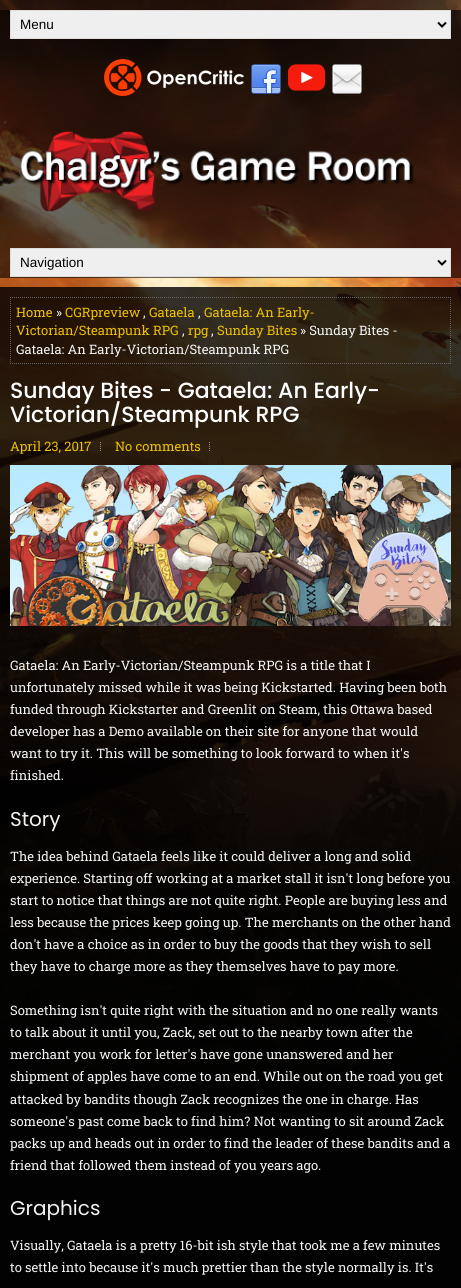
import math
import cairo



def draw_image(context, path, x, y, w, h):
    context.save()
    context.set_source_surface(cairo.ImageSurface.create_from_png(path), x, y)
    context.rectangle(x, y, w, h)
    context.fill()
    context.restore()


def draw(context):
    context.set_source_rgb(8 / 255, 10 / 255, 8 / 255)
    context.paint()
    draw_image(context, "images/1.png", 0, 0, 461, 1080)
    context.set_source_rgba(0, 0, 0, 0.6)
    context.rectangle(0, 10, 461, 268)
    context.fill()
    context.set_source_rgb(239 / 255, 239 / 255, 239 / 255)
    context.rectangle(10.5, 10.5, 440, 28)
    context.fill_preserve()
    context.set_source_rgb(221 / 255, 221 / 255, 221 / 255)
    context.set_line_width(1)
    context.stroke()
    context.new_path()
    context.move_to(438, 22.5)
    context.line_to(442, 26.5)
    context.line_to(446, 22.5)
    context.set_source_rgb(0, 0, 0)
    context.set_line_width(2)
    context.stroke()
    draw_image(context, "images/2.png", 104, 59, 140, 37)
    draw_image(context, "images/3.png", 251, 64, 30, 31)
    draw_image(context, "images/4.png", 288, 64, 37, 27)
    draw_image(context, "images/5.png", 332, 64, 30, 30)
    draw_image(context, "images/6.png", 20, 131, 394, 81)
    context.set_source_rgb(239 / 255, 239 / 255, 239 / 255)
    context.rectangle(10.5, 248.5, 440, 28)
    context.fill_preserve()
    context.set_source_rgb(221 / 255, 221 / 255, 221 / 255)
    context.set_line_width(1)
    context.stroke()
    context.new_path()
    context.move_to(438, 260.5)
    context.line_to(442, 264.5)
    context.line_to(446, 260.5)
    context.set_source_rgb(0, 0, 0)
    context.set_line_width(2)
    context.stroke()
    context.set_source_rgba(0, 0, 0, 0.8)
    context.rectangle(0, 287, 461, 1001)
    context.fill()
    context.new_path()
    context.move_to(10, 297.5)
    context.line_to(451, 297.5)
    context.set_source_rgb(102 / 255, 102 / 255, 102 / 255)
    context.set_line_width(1)
    context.set_dash([1, 1])
    context.stroke()
    context.new_path()
    context.move_to(450.5, 297)
    context.line_to(450.5, 364)
    context.stroke()
    context.new_path()
    context.move_to(10, 363.5)
    context.line_to(451, 363.5)
    context.stroke()
    context.new_path()
    context.move_to(10.5, 297)
    context.line_to(10.5, 364)
    context.stroke()
    draw_image(context, "images/7.png", 100, 442, 1, 9)
    draw_image(context, "images/8.png", 209, 442, 1, 9)
    draw_image(context, "images/9.png", 10, 465, 441, 161)
    context.select_font_face("Liberation Sans")
    context.set_font_size(13.5)
    context.set_source_rgb(0, 0, 0)
    context.move_to(20, 29)
    context.show_text("Menu")
    context.move_to(20, 267)
    context.show_text("Navigation")
    context.select_font_face("Roboto Slab")
    context.set_font_size(13)
    context.set_source_rgb(237 / 255, 193 / 255, 0)
    context.move_to(16, 317)
    context.show_text("Home")
    context.set_source_rgb(243 / 255, 243 / 255, 243 / 255)
    context.move_to(56, 317)
    context.show_text("»")
    context.set_source_rgb(237 / 255, 193 / 255, 0)
    context.move_to(65, 317)
    context.show_text("CGRpreview")
    context.set_source_rgb(243 / 255, 243 / 255, 243 / 255)
    context.move_to(143, 317)
    context.show_text(",")
    context.set_source_rgb(237 / 255, 193 / 255, 0)
    context.move_to(149, 317)
    context.show_text("Gataela")
    context.set_source_rgb(243 / 255, 243 / 255, 243 / 255)
    context.move_to(198, 317)
    context.show_text(",")
    context.set_source_rgb(237 / 255, 193 / 255, 0)
    context.move_to(204, 317)
    context.show_text("Gataela: An Early-")
    context.move_to(16, 335)
    context.show_text("Victorian/Steampunk RPG")
    context.set_source_rgb(243 / 255, 243 / 255, 243 / 255)
    context.move_to(182, 335)
    context.show_text(",")
    context.set_source_rgb(237 / 255, 193 / 255, 0)
    context.move_to(188, 335)
    context.show_text("rpg")
    context.set_source_rgb(243 / 255, 243 / 255, 243 / 255)
    context.move_to(211, 335)
    context.show_text(",")
    context.set_source_rgb(237 / 255, 193 / 255, 0)
    context.move_to(217, 335)
    context.show_text("Sunday Bites")
    context.set_source_rgb(243 / 255, 243 / 255, 243 / 255)
    context.move_to(300, 335)
    context.show_text("» Sunday Bites -")
    context.move_to(16, 354)
    context.show_text("Gataela: An Early-Victorian/Steampunk RPG")
    context.select_font_face("Poppins Medium")
    context.set_font_size(22)
    context.set_source_rgb(1, 1, 1)
    context.move_to(10, 398)
    context.show_text("Sunday Bites - Gataela: An Early-")
    context.move_to(10, 422)
    context.show_text("Victorian/Steampunk RPG")
    context.select_font_face("Roboto Slab")
    context.set_font_size(13)
    context.set_source_rgb(237 / 255, 193 / 255, 0)
    context.move_to(10, 451)
    context.show_text("April 23, 2017")
    context.move_to(115, 451)
    context.show_text("No comments")
    context.set_source_rgb(243 / 255, 243 / 255, 243 / 255)
    context.move_to(10, 670)
    context.show_text("Gataela: An Early-Victorian/Steampunk RPG is a title that I")
    context.move_to(10, 692)
    context.show_text("unfortunately missed while it was being Kickstarted. Having been both")
    context.move_to(10, 714)
    context.show_text("funded through Kickstarter and Greenlit on Steam, this Ottawa based")
    context.move_to(10, 736)
    context.show_text("developer has a Demo available on their site for anyone that would")
    context.move_to(10, 758)
    context.show_text("want to try it. This will be something to look forward to when it's")
    context.move_to(10, 780)
    context.show_text("finished.")
    context.select_font_face("Poppins")
    context.set_font_size(20)
    context.move_to(10, 826)
    context.show_text("Story")
    context.select_font_face("Roboto Slab")
    context.set_font_size(13)
    context.move_to(10, 861)
    context.show_text("The idea behind Gataela feels like it could deliver a long and solid")
    context.move_to(10, 883)
    context.show_text("experience. Starting off working at a market stall it isn't long before you")
    context.move_to(10, 905)
    context.show_text("start to notice that things are not quite right. People are buying less and")
    context.move_to(10, 927)
    context.show_text("less because the prices keep going up. The merchants on the other hand")
    context.move_to(10, 949)
    context.show_text("don't have a choice as in order to buy the goods that they wish to sell")
    context.move_to(10, 971)
    context.show_text("they have to charge more as they themselves have to pay more.")
    context.move_to(10, 1015)
    context.show_text("Something isn't quite right with the situation and no one really wants")
    context.move_to(10, 1037)
    context.show_text("to talk about it until you, Zack, set out to the nearby town after the")
    context.move_to(10, 1059)
    context.show_text("merchant you work for letter's have gone unanswered and her")
    context.move_to(10, 1081)
    context.show_text("shipment of apples have come to an end. While out on the road you get")
    context.move_to(10, 1104)
    context.show_text("attacked by bandits though Zack recognizes the one in charge. Has")
    context.move_to(10, 1126)
    context.show_text("someone's past come back to find him? Not wanting to sit around Zack")
    context.move_to(10, 1148)
    context.show_text("packs up and heads out in order to find the leader of these bandits and a")
    context.move_to(10, 1170)
    context.show_text("friend that followed them instead of you years ago.")
    context.select_font_face("Poppins")
    context.set_font_size(20)
    context.move_to(10, 1215)
    context.show_text("Graphics")
    context.select_font_face("Roboto Slab")
    context.set_font_size(13)
    context.move_to(10, 1250)
    context.show_text("Visually, Gataela is a pretty 16-bit ish style that took me a few minutes")
    context.move_to(10, 1272)
    context.show_text("to settle into because it's much prettier than the style normally is. It's")


surface = cairo.ImageSurface(cairo.Format.RGB24, 461, 1288)
context = cairo.Context(surface)
options = cairo.FontOptions()
options.set_hint_metrics(cairo.HintMetrics.OFF)
options.set_hint_style(cairo.HintStyle.NONE)
context.set_font_options(options)
context.set_miter_limit(4)
draw(context)
surface.write_to_png("out.png")
